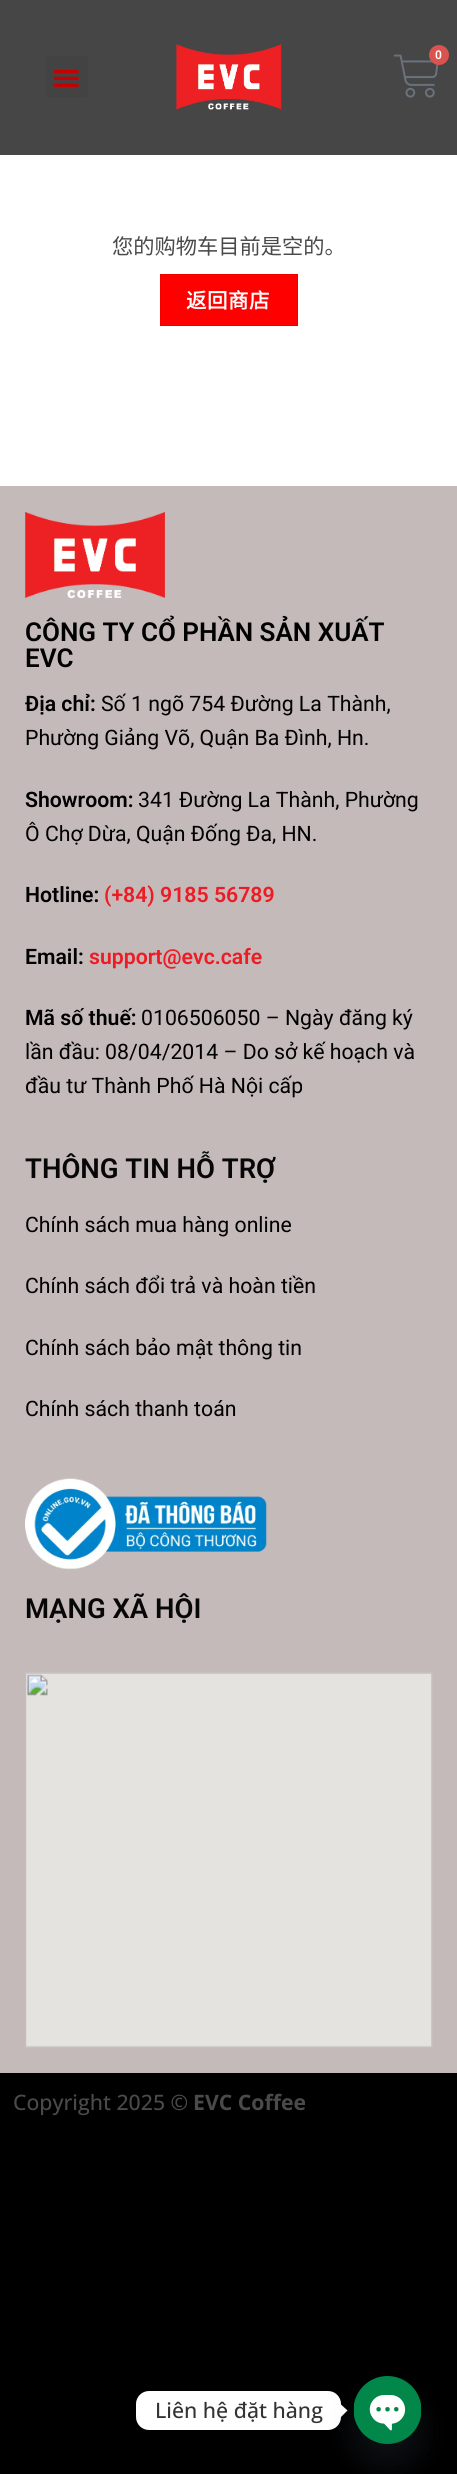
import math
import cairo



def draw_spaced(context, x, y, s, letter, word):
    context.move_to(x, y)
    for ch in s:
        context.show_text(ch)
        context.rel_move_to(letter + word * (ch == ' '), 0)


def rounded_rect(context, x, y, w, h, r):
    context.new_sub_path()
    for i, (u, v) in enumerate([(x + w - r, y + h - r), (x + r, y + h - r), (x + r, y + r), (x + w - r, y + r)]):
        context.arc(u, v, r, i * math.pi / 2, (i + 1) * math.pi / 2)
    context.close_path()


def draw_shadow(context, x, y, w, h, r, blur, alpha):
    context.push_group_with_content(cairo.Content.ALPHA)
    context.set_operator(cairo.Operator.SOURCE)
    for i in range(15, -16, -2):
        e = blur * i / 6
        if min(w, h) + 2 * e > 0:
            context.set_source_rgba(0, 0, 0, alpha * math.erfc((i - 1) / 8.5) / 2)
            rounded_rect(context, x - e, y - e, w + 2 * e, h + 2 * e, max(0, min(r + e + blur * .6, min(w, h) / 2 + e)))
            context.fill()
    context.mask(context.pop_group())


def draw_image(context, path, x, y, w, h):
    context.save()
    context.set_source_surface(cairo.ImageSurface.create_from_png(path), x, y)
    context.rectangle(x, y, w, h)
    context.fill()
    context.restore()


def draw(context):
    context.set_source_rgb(0, 0, 0)
    context.paint()
    context.set_source_rgb(1, 1, 1)
    context.rectangle(0, 155, 457, 331)
    context.fill()
    context.set_source_rgb(71 / 255, 70 / 255, 70 / 255)
    context.rectangle(0, 0, 457, 155)
    context.fill()
    draw_image(context, "images/1.png", 176, 44, 106, 66)
    draw_image(context, "images/2.png", 393, 54, 46, 44)
    context.set_source_rgb(217 / 255, 83 / 255, 79 / 255)
    context.arc(439, 55, 10, 0, 2 * math.pi)
    context.fill()
    context.set_source_rgb(67 / 255, 67 / 255, 67 / 255)
    rounded_rect(context, 46, 56, 42, 42, 4)
    context.fill()
    draw_image(context, "images/3.png", 53, 69, 26, 18)
    context.set_source_rgb(1, 0, 0)
    context.rectangle(160.5, 274.5, 137, 51)
    context.fill_preserve()
    context.set_source_rgb(242 / 255, 0, 0)
    context.set_line_width(1)
    context.stroke()
    context.set_source_rgb(197 / 255, 186 / 255, 186 / 255)
    context.rectangle(0, 486, 457, 1587)
    context.fill()
    draw_image(context, "images/4.png", 25, 512, 140, 87)
    draw_image(context, "images/5.png", 25, 1478, 242, 92)
    draw_image(context, "images/6.png", 25, 1672, 408, 376)
    context.set_source_rgb(1, 1, 1)
    rounded_rect(context, 136, 2391, 205, 39, 13)
    context.fill()
    context.new_path()
    context.move_to(341, 2417)
    context.line_to(341, 2404.5)
    context.line_to(347.5, 2410.5)
    context.close_path()
    context.fill()
    context.set_source_rgb(73 / 255, 104 / 255, 126 / 255)
    draw_shadow(context, 354, 2396, 67, 68, 33.5, 15, 0.16)
    draw_image(context, "images/7.png", 354, 2376, 67, 68)
    context.select_font_face("Roboto SemiBold")
    context.set_font_size(12)
    context.set_source_rgb(1, 1, 1)
    context.move_to(435, 59)
    context.show_text("0")
    context.select_font_face("Noto Sans CJK SC")
    context.set_font_size(21.25)
    context.set_source_rgb(74 / 255, 74 / 255, 74 / 255)
    context.move_to(112, 254)
    context.show_text("您的购物车目前是空的。")
    context.select_font_face("Noto Sans CJK SC", cairo.FontSlant.NORMAL, cairo.FontWeight.BOLD)
    context.set_font_size(20.5)
    context.set_source_rgb(1, 1, 1)
    draw_spaced(context, 186, 308, "返回商店", 0.5, 0)
    context.select_font_face("Roboto SemiBold")
    context.set_font_size(26)
    context.set_source_rgb(0, 0, 0)
    context.move_to(25, 641)
    context.show_text("CÔNG TY CỔ PHẦN SẢN XUẤT")
    context.move_to(25, 667)
    context.show_text("EVC")
    context.set_font_size(21.25)
    context.move_to(25, 711)
    context.show_text("Địa chỉ:")
    context.select_font_face("Roboto")
    context.move_to(101, 711)
    context.show_text("Số 1 ngõ 754 Đường La Thành,")
    context.move_to(25, 745)
    context.show_text("Phường Giảng Võ, Quận Ba Đình, Hn.")
    context.select_font_face("Roboto SemiBold")
    context.move_to(25, 807)
    context.show_text("Showroom:")
    context.select_font_face("Roboto")
    context.move_to(138, 807)
    context.show_text("341 Đường La Thành, Phường")
    context.move_to(25, 841)
    context.show_text("Ô Chợ Dừa, Quận Đống Đa, HN.")
    context.select_font_face("Roboto SemiBold")
    context.move_to(25, 902)
    context.show_text("Hotline:")
    context.set_source_rgb(237 / 255, 28 / 255, 36 / 255)
    context.move_to(104, 902)
    context.show_text("(+84) 9185 56789")
    context.set_source_rgb(0, 0, 0)
    context.move_to(25, 964)
    context.show_text("Email:")
    context.set_source_rgb(237 / 255, 28 / 255, 36 / 255)
    context.move_to(89, 964)
    context.show_text("support@evc.cafe")
    context.set_source_rgb(0, 0, 0)
    context.move_to(25, 1025)
    context.show_text("Mã số thuế:")
    context.select_font_face("Roboto")
    context.move_to(141, 1025)
    context.show_text("0106506050 – Ngày đăng ký")
    context.move_to(25, 1059)
    context.show_text("lần đầu: 08/04/2014 – Do sở kế hoạch và")
    context.move_to(25, 1093)
    context.show_text("đầu tư Thành Phố Hà Nội cấp")
    context.select_font_face("Roboto SemiBold")
    context.set_font_size(27.5)
    context.set_source_rgb(7 / 255, 7 / 255, 7 / 255)
    context.move_to(25, 1178)
    context.show_text("THÔNG TIN HỖ TRỢ")
    context.select_font_face("Roboto")
    context.set_font_size(21.25)
    context.set_source_rgb(0, 0, 0)
    context.move_to(25, 1232)
    context.show_text("Chính sách mua hàng online")
    context.move_to(25, 1293)
    context.show_text("Chính sách đổi trả và hoàn tiền")
    context.move_to(25, 1355)
    context.show_text("Chính sách bảo mật thông tin")
    context.move_to(25, 1416)
    context.show_text("Chính sách thanh toán")
    context.select_font_face("Roboto SemiBold")
    context.set_font_size(27.5)
    context.set_source_rgb(7 / 255, 7 / 255, 7 / 255)
    context.move_to(25, 1618)
    context.show_text("MẠNG XÃ HỘI")
    context.select_font_face("Open Sans Medium")
    context.set_font_size(21.25)
    context.set_source_rgb(74 / 255, 74 / 255, 74 / 255)
    context.move_to(13, 2110)
    context.show_text("Copyright 2025 ©")
    context.select_font_face("Open Sans", cairo.FontSlant.NORMAL, cairo.FontWeight.BOLD)
    context.move_to(193, 2110)
    context.show_text("EVC Coffee")
    context.select_font_face("Open Sans Medium")
    context.set_source_rgb(51 / 255, 51 / 255, 51 / 255)
    context.move_to(155, 2418)
    context.show_text("Liên hệ đặt hàng")


surface = cairo.ImageSurface(cairo.Format.RGB24, 457, 2474)
context = cairo.Context(surface)
options = cairo.FontOptions()
options.set_hint_metrics(cairo.HintMetrics.OFF)
options.set_hint_style(cairo.HintStyle.NONE)
context.set_font_options(options)
context.set_miter_limit(4)
draw(context)
surface.write_to_png("out.png")
